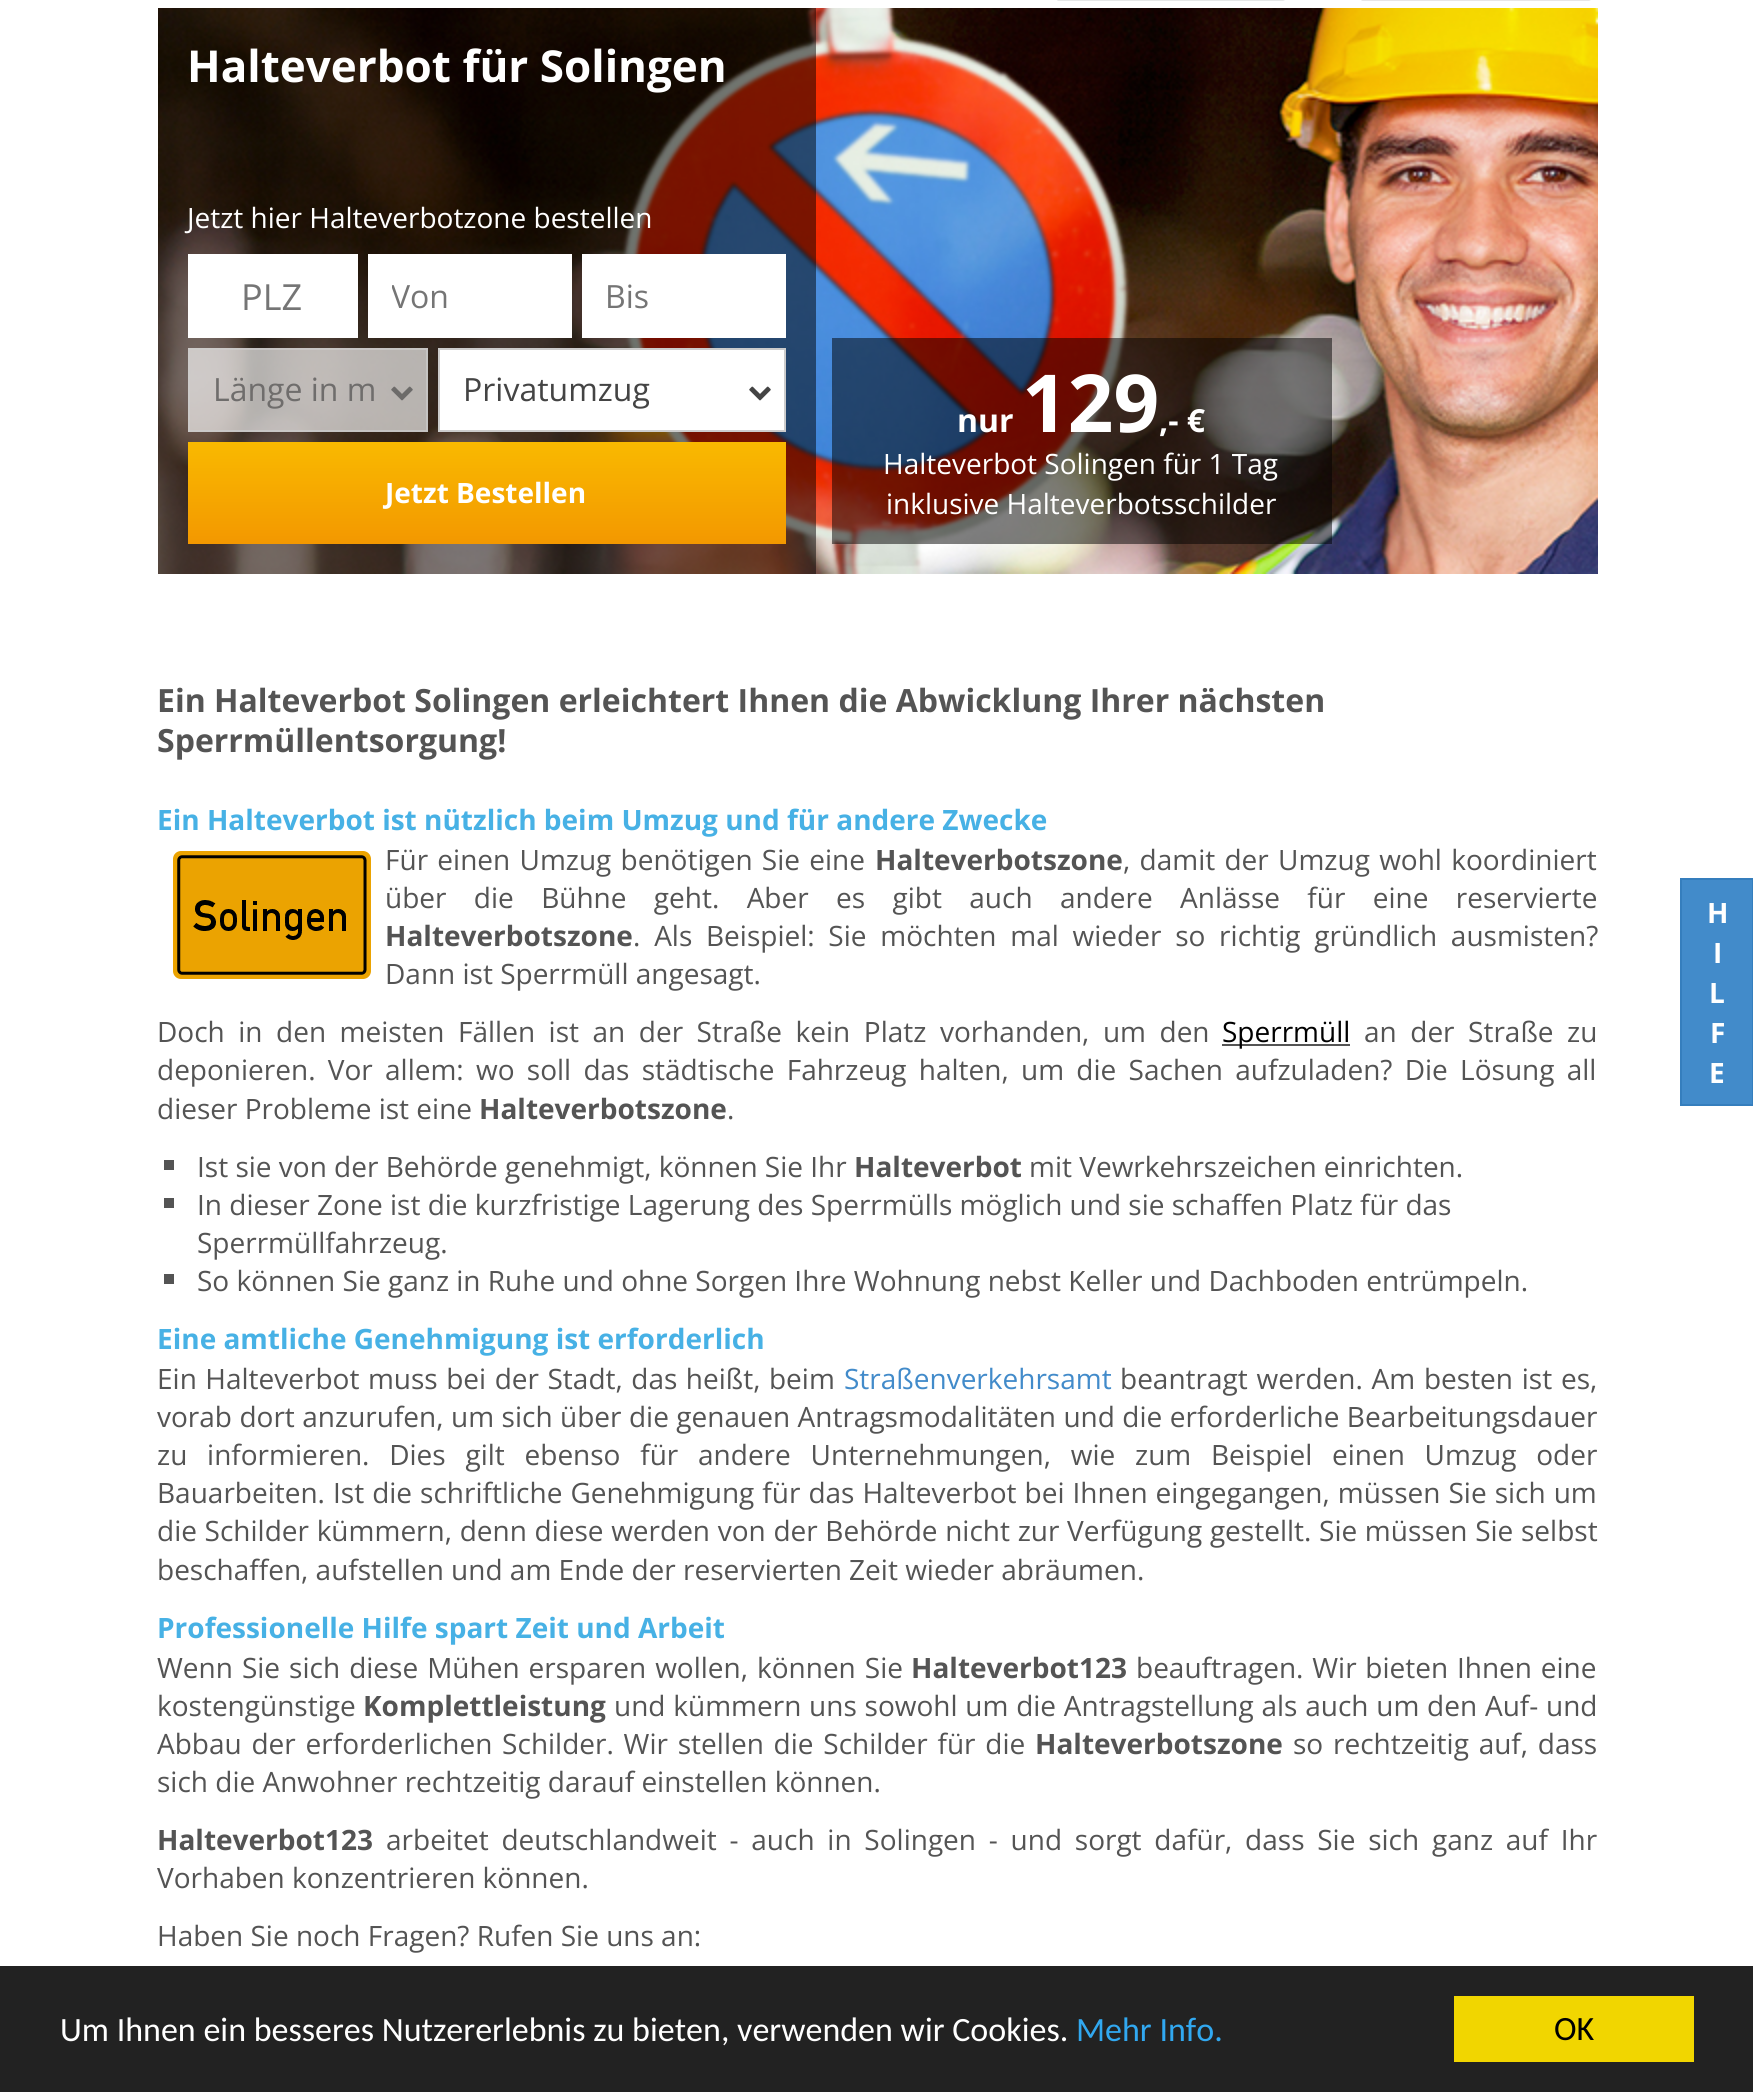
import math
import cairo



def draw_spaced(context, x, y, s, letter, word):
    context.move_to(x, y)
    for ch in s:
        context.show_text(ch)
        context.rel_move_to(letter + word * (ch == ' '), 0)


def draw_image(context, path, x, y, w, h):
    context.save()
    context.set_source_surface(cairo.ImageSurface.create_from_png(path), x, y)
    context.rectangle(x, y, w, h)
    context.fill()
    context.restore()


def draw(context):
    context.set_source_rgb(1, 1, 1)
    context.paint()
    draw_image(context, "images/1.png", 1057, 0, 228, 1)
    draw_image(context, "images/2.png", 1361, 0, 230, 1)
    draw_image(context, "images/3.png", 158, 8, 1440, 566)
    context.set_source_rgba(0, 0, 0, 0.5)
    context.rectangle(158, 8, 658, 566)
    context.fill()
    context.set_source_rgb(1, 1, 1)
    context.rectangle(188, 254, 170, 84)
    context.fill()
    context.rectangle(368, 254, 204, 84)
    context.fill()
    context.rectangle(582, 254, 204, 84)
    context.fill()
    context.set_source_rgba(1, 1, 1, 0.65)
    context.rectangle(188, 348, 240, 84)
    context.fill()
    context.rectangle(189, 349, 238, 82)
    context.set_source_rgba(204 / 255, 204 / 255, 204 / 255, 0.65)
    context.stroke()
    draw_image(context, "images/4.png", 391, 386, 22, 15)
    context.set_source_rgb(1, 1, 1)
    context.rectangle(439, 349, 346, 82)
    context.fill_preserve()
    context.set_source_rgb(204 / 255, 204 / 255, 204 / 255)
    context.stroke()
    draw_image(context, "images/5.png", 749, 386, 22, 15)
    gradient = cairo.LinearGradient(487, 442, 487, 544)
    gradient.add_color_stop_rgba(0, 249 / 255, 185 / 255, 0, 1)
    gradient.add_color_stop_rgba(1, 243 / 255, 152 / 255, 0, 1)
    context.set_source(gradient)
    context.rectangle(188, 442, 598, 102)
    context.fill()
    context.set_source_rgba(0, 0, 0, 0.5)
    context.rectangle(832, 338, 500, 206)
    context.fill()
    draw_image(context, "images/6.png", 173, 851, 198, 128)
    context.set_source_rgb(84 / 255, 84 / 255, 84 / 255)
    context.rectangle(1222, 1044, 128, 2)
    context.fill()
    context.rectangle(164, 1160, 10, 10)
    context.fill()
    context.rectangle(164, 1198, 10, 10)
    context.fill()
    context.rectangle(164, 1274, 10, 10)
    context.fill()
    context.set_source_rgb(66 / 255, 139 / 255, 202 / 255)
    context.rectangle(1681, 879, 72, 226)
    context.fill_preserve()
    context.set_source_rgb(53 / 255, 126 / 255, 189 / 255)
    context.stroke()
    context.set_source_rgb(34 / 255, 34 / 255, 34 / 255)
    context.rectangle(0, 1966, 1753, 126)
    context.fill()
    context.set_source_rgb(241 / 255, 214 / 255, 0)
    context.rectangle(1454, 1996, 240, 66)
    context.fill()
    context.select_font_face("Open Sans", cairo.FontSlant.NORMAL, cairo.FontWeight.BOLD)
    context.set_font_size(44)
    context.set_source_rgb(1, 1, 1)
    context.move_to(187, 82)
    context.show_text("Halteverbot für Solingen")
    context.select_font_face("Open Sans")
    context.set_font_size(28)
    context.move_to(187, 228)
    context.show_text("Jetzt hier Halteverbotzone bestellen")
    context.set_font_size(36)
    context.set_source_rgb(117 / 255, 117 / 255, 117 / 255)
    context.move_to(241, 310)
    context.show_text("PLZ")
    context.save()
    context.rectangle(392, 274, 156, 44)
    context.clip()
    context.set_font_size(32)
    context.move_to(391, 308)
    context.show_text("Von")
    context.restore()
    context.set_font_size(32)
    context.move_to(605, 308)
    context.show_text("Bis")
    context.set_source_rgb(111 / 255, 109 / 255, 108 / 255)
    context.move_to(213, 401)
    context.show_text("Länge in m")
    context.set_source_rgb(68 / 255, 68 / 255, 68 / 255)
    context.move_to(463, 401)
    context.show_text("Privatumzug")
    context.select_font_face("Open Sans", cairo.FontSlant.NORMAL, cairo.FontWeight.BOLD)
    context.set_font_size(28)
    context.set_source_rgb(1, 1, 1)
    context.move_to(385, 503)
    context.show_text("Jetzt Bestellen")
    context.set_font_size(32)
    context.move_to(957, 432)
    context.show_text("nur")
    context.set_font_size(80)
    context.move_to(1022, 432)
    context.show_text("129")
    context.set_font_size(32)
    context.move_to(1159, 432)
    context.show_text(",- €")
    context.select_font_face("Open Sans")
    context.set_font_size(28)
    context.move_to(883, 474)
    context.show_text("Halteverbot Solingen für 1 Tag")
    context.move_to(886, 514)
    context.show_text("inklusive Halteverbotsschilder")
    context.select_font_face("Open Sans", cairo.FontSlant.NORMAL, cairo.FontWeight.BOLD)
    context.set_font_size(32)
    context.set_source_rgb(84 / 255, 84 / 255, 84 / 255)
    context.move_to(157, 712)
    context.show_text("Ein Halteverbot Solingen erleichtert Ihnen die Abwicklung Ihrer nächsten")
    context.move_to(157, 752)
    context.show_text("Sperrmüllentsorgung!")
    context.set_font_size(28)
    context.set_source_rgb(71 / 255, 177 / 255, 229 / 255)
    context.move_to(157, 830)
    context.show_text("Ein Halteverbot ist nützlich beim Umzug und für andere Zwecke")
    context.select_font_face("Open Sans")
    context.set_source_rgb(84 / 255, 84 / 255, 84 / 255)
    draw_spaced(context, 385, 870, "Für einen Umzug benötigen Sie eine", 0, 2)
    context.select_font_face("Open Sans", cairo.FontSlant.NORMAL, cairo.FontWeight.BOLD)
    context.move_to(875, 870)
    context.show_text("Halteverbotszone")
    context.select_font_face("Open Sans")
    draw_spaced(context, 1123, 870, ", damit der Umzug wohl koordiniert", 0, 2)
    draw_spaced(context, 385, 908, "über die Bühne geht. Aber es gibt auch andere Anlässe für eine reservierte", 0, 20.1)
    context.select_font_face("Open Sans", cairo.FontSlant.NORMAL, cairo.FontWeight.BOLD)
    context.move_to(385, 946)
    context.show_text("Halteverbotszone")
    context.select_font_face("Open Sans")
    draw_spaced(context, 633, 946, ". Als Beispiel: Sie möchten mal wieder so richtig gründlich ausmisten?", 0, 6.5)
    context.move_to(385, 984)
    context.show_text("Dann ist Sperrmüll angesagt.")
    draw_spaced(context, 157, 1042, "Doch in den meisten Fällen ist an der Straße kein Platz vorhanden, um den", 0, 6.25)
    context.set_source_rgb(0, 0, 0)
    context.move_to(1222, 1042)
    context.show_text("Sperrmüll")
    context.set_source_rgb(84 / 255, 84 / 255, 84 / 255)
    draw_spaced(context, 1364, 1042, "an der Straße zu", 0, 6.25)
    draw_spaced(context, 157, 1080, "deponieren. Vor allem: wo soll das städtische Fahrzeug halten, um die Sachen aufzuladen? Die Lösung all", 0, 5)
    context.move_to(157, 1119)
    context.show_text("dieser Probleme ist eine")
    context.select_font_face("Open Sans", cairo.FontSlant.NORMAL, cairo.FontWeight.BOLD)
    context.move_to(479, 1119)
    context.show_text("Halteverbotszone")
    context.select_font_face("Open Sans")
    context.move_to(727, 1119)
    context.show_text(".")
    context.move_to(197, 1177)
    context.show_text("Ist sie von der Behörde genehmigt, können Sie Ihr")
    context.select_font_face("Open Sans", cairo.FontSlant.NORMAL, cairo.FontWeight.BOLD)
    context.move_to(854, 1177)
    context.show_text("Halteverbot")
    context.select_font_face("Open Sans")
    context.move_to(1029, 1177)
    context.show_text("mit Vewrkehrszeichen einrichten.")
    context.move_to(197, 1215)
    context.show_text("In dieser Zone ist die kurzfristige Lagerung des Sperrmülls möglich und sie schaffen Platz für das")
    context.move_to(197, 1253)
    context.show_text("Sperrmüllfahrzeug.")
    context.move_to(197, 1291)
    context.show_text("So können Sie ganz in Ruhe und ohne Sorgen Ihre Wohnung nebst Keller und Dachboden entrümpeln.")
    context.select_font_face("Open Sans", cairo.FontSlant.NORMAL, cairo.FontWeight.BOLD)
    context.set_source_rgb(71 / 255, 177 / 255, 229 / 255)
    context.move_to(157, 1349)
    context.show_text("Eine amtliche Genehmigung ist erforderlich")
    context.select_font_face("Open Sans")
    context.set_source_rgb(84 / 255, 84 / 255, 84 / 255)
    draw_spaced(context, 157, 1389, "Ein Halteverbot muss bei der Stadt, das heißt, beim", 0, 1.25)
    context.set_source_rgb(66 / 255, 139 / 255, 202 / 255)
    context.move_to(844, 1389)
    context.show_text("Straßenverkehrsamt")
    context.set_source_rgb(84 / 255, 84 / 255, 84 / 255)
    draw_spaced(context, 1120, 1389, "beantragt werden. Am besten ist es,", 0, 1.5)
    draw_spaced(context, 157, 1427, "vorab dort anzurufen, um sich über die genauen Antragsmodalitäten und die erforderliche Bearbeitungsdauer", 0, 0.2)
    draw_spaced(context, 157, 1465, "zu informieren. Dies gilt ebenso für andere Unternehmungen, wie zum Beispiel einen Umzug oder", 0, 12.5)
    draw_spaced(context, 157, 1503, "Bauarbeiten. Ist die schriftliche Genehmigung für das Halteverbot bei Ihnen eingegangen, müssen Sie sich um", 0, 0.75)
    draw_spaced(context, 157, 1541, "die Schilder kümmern, denn diese werden von der Behörde nicht zur Verfügung gestellt. Sie müssen Sie selbst", 0, 0.4)
    context.move_to(157, 1580)
    context.show_text("beschaffen, aufstellen und am Ende der reservierten Zeit wieder abräumen.")
    context.select_font_face("Open Sans", cairo.FontSlant.NORMAL, cairo.FontWeight.BOLD)
    context.set_source_rgb(71 / 255, 177 / 255, 229 / 255)
    context.move_to(157, 1638)
    context.show_text("Professionelle Hilfe spart Zeit und Arbeit")
    context.select_font_face("Open Sans")
    context.set_source_rgb(84 / 255, 84 / 255, 84 / 255)
    draw_spaced(context, 157, 1678, "Wenn Sie sich diese Mühen ersparen wollen, können Sie", 0, 1.75)
    context.select_font_face("Open Sans", cairo.FontSlant.NORMAL, cairo.FontWeight.BOLD)
    context.move_to(911, 1678)
    context.show_text("Halteverbot123")
    context.select_font_face("Open Sans")
    draw_spaced(context, 1136, 1678, "beauftragen. Wir bieten Ihnen eine", 0, 1.5)
    context.move_to(157, 1716)
    context.show_text("kostengünstige")
    context.select_font_face("Open Sans", cairo.FontSlant.NORMAL, cairo.FontWeight.BOLD)
    context.move_to(363, 1716)
    context.show_text("Komplettleistung")
    context.select_font_face("Open Sans")
    draw_spaced(context, 614, 1716, "und kümmern uns sowohl um die Antragstellung als auch um den Auf- und", 0, 0.5)
    draw_spaced(context, 157, 1754, "Abbau der erforderlichen Schilder. Wir stellen die Schilder für die", 0, 2.5)
    context.select_font_face("Open Sans", cairo.FontSlant.NORMAL, cairo.FontWeight.BOLD)
    context.move_to(1035, 1754)
    context.show_text("Halteverbotszone")
    context.select_font_face("Open Sans")
    draw_spaced(context, 1293, 1754, "so rechtzeitig auf, dass", 0, 2.5)
    context.move_to(157, 1792)
    context.show_text("sich die Anwohner rechtzeitig darauf einstellen können.")
    context.select_font_face("Open Sans", cairo.FontSlant.NORMAL, cairo.FontWeight.BOLD)
    context.move_to(157, 1850)
    context.show_text("Halteverbot123")
    context.select_font_face("Open Sans")
    draw_spaced(context, 386, 1850, "arbeitet deutschlandweit - auch in Solingen - und sorgt dafür, dass Sie sich ganz auf Ihr", 0, 5.5)
    context.move_to(157, 1888)
    context.show_text("Vorhaben konzentrieren können.")
    context.move_to(157, 1946)
    context.show_text("Haben Sie noch Fragen? Rufen Sie uns an:")
    context.select_font_face("Open Sans", cairo.FontSlant.NORMAL, cairo.FontWeight.BOLD)
    context.set_source_rgb(1, 1, 1)
    context.move_to(1707, 923)
    context.show_text("H")
    context.move_to(1713, 963)
    context.show_text("I")
    context.move_to(1709, 1003)
    context.show_text("L")
    context.move_to(1710, 1043)
    context.show_text("F")
    context.move_to(1709, 1083)
    context.show_text("E")
    context.select_font_face("Carlito")
    context.set_font_size(34)
    context.move_to(60, 2041)
    context.show_text("Um Ihnen ein besseres Nutzererlebnis zu bieten, verwenden wir Cookies.")
    context.set_source_rgb(49 / 255, 168 / 255, 240 / 255)
    context.move_to(1076, 2041)
    context.show_text("Mehr Info.")
    context.set_source_rgb(0, 0, 0)
    context.move_to(1554, 2040)
    context.show_text("OK")


surface = cairo.ImageSurface(cairo.Format.RGB24, 1753, 2092)
context = cairo.Context(surface)
options = cairo.FontOptions()
options.set_hint_metrics(cairo.HintMetrics.OFF)
options.set_hint_style(cairo.HintStyle.NONE)
context.set_font_options(options)
context.set_miter_limit(4)
draw(context)
surface.write_to_png("out.png")
